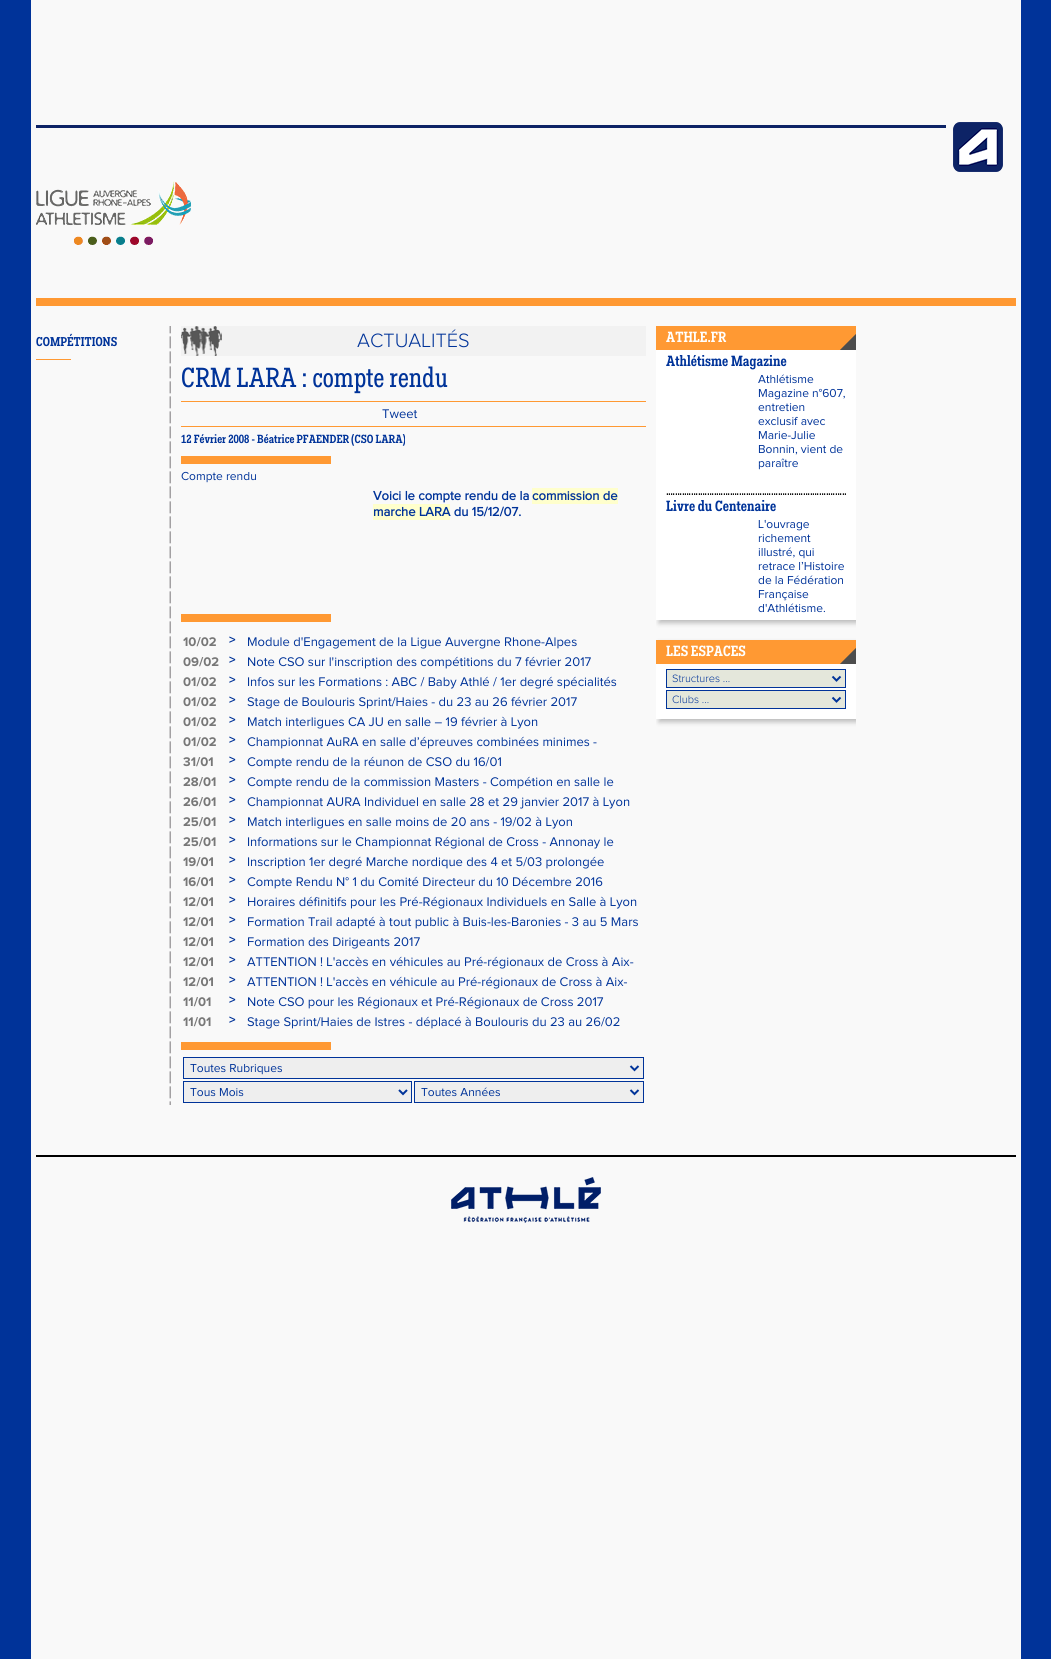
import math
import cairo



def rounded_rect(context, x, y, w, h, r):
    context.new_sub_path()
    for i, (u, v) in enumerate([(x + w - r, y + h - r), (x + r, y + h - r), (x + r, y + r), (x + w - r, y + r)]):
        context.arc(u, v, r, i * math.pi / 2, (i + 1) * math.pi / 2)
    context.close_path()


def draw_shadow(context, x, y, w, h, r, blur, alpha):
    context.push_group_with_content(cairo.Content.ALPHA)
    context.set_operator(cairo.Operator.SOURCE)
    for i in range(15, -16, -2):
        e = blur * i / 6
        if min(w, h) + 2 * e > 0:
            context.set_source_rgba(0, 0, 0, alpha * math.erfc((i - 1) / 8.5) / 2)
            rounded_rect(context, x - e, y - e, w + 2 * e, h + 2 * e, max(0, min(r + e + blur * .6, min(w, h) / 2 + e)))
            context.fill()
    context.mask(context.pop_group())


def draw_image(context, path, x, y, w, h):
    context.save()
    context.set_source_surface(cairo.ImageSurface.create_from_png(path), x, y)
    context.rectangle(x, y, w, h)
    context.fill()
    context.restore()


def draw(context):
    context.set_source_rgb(0, 51 / 255, 153 / 255)
    context.paint()
    context.set_source_rgb(249 / 255, 249 / 255, 249 / 255)
    context.rectangle(31, 0, 990, 1659)
    context.fill()
    context.set_source_rgb(13 / 255, 35 / 255, 102 / 255)
    context.rectangle(36, 125, 910, 3)
    context.fill()
    draw_image(context, "images/1.png", 953, 122, 50, 50)
    draw_image(context, "images/2.png", 36, 181, 155, 64)
    context.set_source_rgb(1, 153 / 255, 51 / 255)
    context.rectangle(36, 298, 980, 8)
    context.fill()
    draw_image(context, "images/3.png", 169, 326, 2, 779)
    context.rectangle(36, 359, 35, 1)
    context.fill()
    context.set_source_rgb(242 / 255, 242 / 255, 242 / 255)
    context.rectangle(181, 326, 465, 30)
    context.fill()
    draw_image(context, "images/4.png", 181, 326, 41, 30)
    context.set_source_rgb(1, 153 / 255, 51 / 255)
    context.rectangle(181, 401, 465, 1)
    context.fill()
    context.rectangle(181, 426, 465, 1)
    context.fill()
    context.rectangle(181, 456, 150, 8)
    context.fill()
    context.set_source_rgb(1, 1, 204 / 255)
    context.rectangle(532, 488, 86, 16)
    context.fill()
    context.rectangle(373, 504, 77, 16)
    context.fill()
    context.set_source_rgb(1, 153 / 255, 51 / 255)
    context.rectangle(181, 614, 150, 8)
    context.fill()
    context.rectangle(181, 1042, 150, 8)
    context.fill()
    context.set_source_rgb(238 / 255, 238 / 255, 238 / 255)
    context.rectangle(183.5, 1057.5, 460, 21)
    context.fill_preserve()
    context.set_source_rgb(0, 51 / 255, 153 / 255)
    context.set_line_width(1)
    context.stroke()
    context.new_path()
    context.move_to(630.5, 1066)
    context.line_to(634.5, 1070)
    context.line_to(638.5, 1066)
    context.set_line_width(2)
    context.stroke()
    context.set_source_rgb(238 / 255, 238 / 255, 238 / 255)
    context.rectangle(183.5, 1081.5, 228, 21)
    context.fill_preserve()
    context.set_source_rgb(0, 51 / 255, 153 / 255)
    context.set_line_width(1)
    context.stroke()
    context.new_path()
    context.move_to(399, 1090)
    context.line_to(403, 1094)
    context.line_to(407, 1090)
    context.set_line_width(2)
    context.stroke()
    context.set_source_rgb(238 / 255, 238 / 255, 238 / 255)
    context.rectangle(414.5, 1081.5, 229, 21)
    context.fill_preserve()
    context.set_source_rgb(0, 51 / 255, 153 / 255)
    context.set_line_width(1)
    context.stroke()
    context.new_path()
    context.move_to(630.5, 1090)
    context.line_to(634.5, 1094)
    context.line_to(638.5, 1090)
    context.set_line_width(2)
    context.stroke()
    context.save()
    context.rectangle(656, 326, 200, 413)
    context.clip()
    context.set_source_rgb(0, 0, 0)
    draw_shadow(context, 659, 329, 200, 294, 0, 2.5, 0.25)
    context.restore()
    context.set_source_rgb(1, 1, 1)
    context.rectangle(656, 350, 200, 270)
    context.fill()
    context.set_source_rgb(1, 153 / 255, 51 / 255)
    context.rectangle(656, 326, 200, 24)
    context.fill()
    draw_image(context, "images/5.png", 840, 334, 16, 16)
    draw_image(context, "images/6.png", 666, 493, 180, 2)
    context.save()
    context.rectangle(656, 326, 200, 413)
    context.clip()
    context.set_source_rgb(0, 0, 0)
    draw_shadow(context, 659, 643, 200, 79, 0, 2.5, 0.25)
    context.restore()
    context.set_source_rgb(1, 1, 1)
    context.rectangle(656, 664, 200, 55)
    context.fill()
    context.set_source_rgb(1, 153 / 255, 51 / 255)
    context.rectangle(656, 640, 200, 24)
    context.fill()
    draw_image(context, "images/5.png", 840, 648, 16, 16)
    context.set_source_rgb(228 / 255, 231 / 255, 219 / 255)
    context.rectangle(666.5, 669.5, 179, 18)
    context.fill_preserve()
    context.set_source_rgb(0, 51 / 255, 153 / 255)
    context.set_line_width(1)
    context.stroke()
    context.new_path()
    context.move_to(832.5, 676.5)
    context.line_to(836.5, 680.5)
    context.line_to(840.5, 676.5)
    context.set_line_width(2)
    context.stroke()
    context.set_source_rgb(228 / 255, 231 / 255, 219 / 255)
    context.rectangle(666.5, 690.5, 179, 18)
    context.fill_preserve()
    context.set_source_rgb(0, 51 / 255, 153 / 255)
    context.set_line_width(1)
    context.stroke()
    context.new_path()
    context.move_to(832.5, 697.5)
    context.line_to(836.5, 701.5)
    context.line_to(840.5, 697.5)
    context.set_line_width(2)
    context.stroke()
    context.set_source_rgb(0, 0, 0)
    context.rectangle(36, 1155, 980, 2)
    context.fill()
    draw_image(context, "images/7.png", 451, 1177, 150, 46)
    context.select_font_face("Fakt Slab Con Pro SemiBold")
    context.set_font_size(13)
    context.set_source_rgb(0, 51 / 255, 153 / 255)
    context.move_to(36, 346)
    context.show_text("COMPÉTITIONS")
    context.select_font_face("Proxima Nova Light")
    context.set_font_size(20)
    context.move_to(357, 347)
    context.show_text("ACTUALITÉS")
    context.select_font_face("Fakt Slab Con Pro")
    context.set_font_size(28)
    context.move_to(181, 387)
    context.show_text("CRM LARA : compte rendu")
    context.select_font_face("Proxima Nova")
    context.set_font_size(13)
    context.move_to(382, 418)
    context.show_text("Tweet")
    context.select_font_face("Fakt Slab Con Pro SemiBold")
    context.set_font_size(12)
    context.move_to(181, 443)
    context.show_text("12 Février 2008 - Béatrice PFAENDER (CSO LARA)")
    context.select_font_face("Proxima Nova")
    context.move_to(181, 480)
    context.show_text("Compte rendu")
    context.select_font_face("Proxima Nova", cairo.FontSlant.NORMAL, cairo.FontWeight.BOLD)
    context.set_font_size(13)
    context.move_to(373, 500)
    context.show_text("Voici le compte rendu de la")
    context.move_to(532, 500)
    context.show_text("commission de")
    context.move_to(373, 516)
    context.show_text("marche LARA du 15/12/07.")
    context.select_font_face("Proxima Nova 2", cairo.FontSlant.NORMAL, cairo.FontWeight.BOLD)
    context.set_source_rgb(119 / 255, 119 / 255, 119 / 255)
    context.move_to(183, 646)
    context.show_text("10/02")
    context.set_source_rgb(0, 51 / 255, 153 / 255)
    context.move_to(229, 644)
    context.show_text(">")
    context.select_font_face("Proxima Nova")
    context.move_to(247, 646)
    context.show_text("Module d'Engagement de la Ligue Auvergne Rhone-Alpes")
    context.select_font_face("Proxima Nova 2", cairo.FontSlant.NORMAL, cairo.FontWeight.BOLD)
    context.set_source_rgb(119 / 255, 119 / 255, 119 / 255)
    context.move_to(183, 666)
    context.show_text("09/02")
    context.set_source_rgb(0, 51 / 255, 153 / 255)
    context.move_to(229, 664)
    context.show_text(">")
    context.select_font_face("Proxima Nova")
    context.move_to(247, 666)
    context.show_text("Note CSO sur l'inscription des compétitions du 7 février 2017")
    context.select_font_face("Proxima Nova 2", cairo.FontSlant.NORMAL, cairo.FontWeight.BOLD)
    context.set_source_rgb(119 / 255, 119 / 255, 119 / 255)
    context.move_to(183, 686)
    context.show_text("01/02")
    context.set_source_rgb(0, 51 / 255, 153 / 255)
    context.move_to(229, 684)
    context.show_text(">")
    context.select_font_face("Proxima Nova")
    context.move_to(247, 686)
    context.show_text("Infos sur les Formations : ABC / Baby Athlé / 1er degré spécialités")
    context.select_font_face("Proxima Nova 2", cairo.FontSlant.NORMAL, cairo.FontWeight.BOLD)
    context.set_source_rgb(119 / 255, 119 / 255, 119 / 255)
    context.move_to(183, 706)
    context.show_text("01/02")
    context.set_source_rgb(0, 51 / 255, 153 / 255)
    context.move_to(229, 704)
    context.show_text(">")
    context.select_font_face("Proxima Nova")
    context.move_to(247, 706)
    context.show_text("Stage de Boulouris Sprint/Haies - du 23 au 26 février 2017")
    context.select_font_face("Proxima Nova 2", cairo.FontSlant.NORMAL, cairo.FontWeight.BOLD)
    context.set_source_rgb(119 / 255, 119 / 255, 119 / 255)
    context.move_to(183, 726)
    context.show_text("01/02")
    context.set_source_rgb(0, 51 / 255, 153 / 255)
    context.move_to(229, 724)
    context.show_text(">")
    context.select_font_face("Proxima Nova")
    context.move_to(247, 726)
    context.show_text("Match interligues CA JU en salle – 19 février à Lyon")
    context.select_font_face("Proxima Nova 2", cairo.FontSlant.NORMAL, cairo.FontWeight.BOLD)
    context.set_source_rgb(119 / 255, 119 / 255, 119 / 255)
    context.move_to(183, 746)
    context.show_text("01/02")
    context.set_source_rgb(0, 51 / 255, 153 / 255)
    context.move_to(229, 744)
    context.show_text(">")
    context.select_font_face("Proxima Nova")
    context.move_to(247, 746)
    context.show_text("Championnat AuRA en salle d’épreuves combinées minimes -")
    context.select_font_face("Proxima Nova 2", cairo.FontSlant.NORMAL, cairo.FontWeight.BOLD)
    context.set_source_rgb(119 / 255, 119 / 255, 119 / 255)
    context.move_to(183, 766)
    context.show_text("31/01")
    context.set_source_rgb(0, 51 / 255, 153 / 255)
    context.move_to(229, 764)
    context.show_text(">")
    context.select_font_face("Proxima Nova")
    context.move_to(247, 766)
    context.show_text("Compte rendu de la réunon de CSO du 16/01")
    context.select_font_face("Proxima Nova 2", cairo.FontSlant.NORMAL, cairo.FontWeight.BOLD)
    context.set_source_rgb(119 / 255, 119 / 255, 119 / 255)
    context.move_to(183, 786)
    context.show_text("28/01")
    context.set_source_rgb(0, 51 / 255, 153 / 255)
    context.move_to(229, 784)
    context.show_text(">")
    context.select_font_face("Proxima Nova")
    context.move_to(247, 786)
    context.show_text("Compte rendu de la commission Masters - Compétion en salle le")
    context.select_font_face("Proxima Nova 2", cairo.FontSlant.NORMAL, cairo.FontWeight.BOLD)
    context.set_source_rgb(119 / 255, 119 / 255, 119 / 255)
    context.move_to(183, 806)
    context.show_text("26/01")
    context.set_source_rgb(0, 51 / 255, 153 / 255)
    context.move_to(229, 804)
    context.show_text(">")
    context.select_font_face("Proxima Nova")
    context.move_to(247, 806)
    context.show_text("Championnat AURA Individuel en salle 28 et 29 janvier 2017 à Lyon")
    context.select_font_face("Proxima Nova 2", cairo.FontSlant.NORMAL, cairo.FontWeight.BOLD)
    context.set_source_rgb(119 / 255, 119 / 255, 119 / 255)
    context.move_to(183, 826)
    context.show_text("25/01")
    context.set_source_rgb(0, 51 / 255, 153 / 255)
    context.move_to(229, 824)
    context.show_text(">")
    context.select_font_face("Proxima Nova")
    context.move_to(247, 826)
    context.show_text("Match interligues en salle moins de 20 ans - 19/02 à Lyon")
    context.select_font_face("Proxima Nova 2", cairo.FontSlant.NORMAL, cairo.FontWeight.BOLD)
    context.set_source_rgb(119 / 255, 119 / 255, 119 / 255)
    context.move_to(183, 846)
    context.show_text("25/01")
    context.set_source_rgb(0, 51 / 255, 153 / 255)
    context.move_to(229, 844)
    context.show_text(">")
    context.select_font_face("Proxima Nova")
    context.move_to(247, 846)
    context.show_text("Informations sur le Championnat Régional de Cross - Annonay le")
    context.select_font_face("Proxima Nova 2", cairo.FontSlant.NORMAL, cairo.FontWeight.BOLD)
    context.set_source_rgb(119 / 255, 119 / 255, 119 / 255)
    context.move_to(183, 866)
    context.show_text("19/01")
    context.set_source_rgb(0, 51 / 255, 153 / 255)
    context.move_to(229, 864)
    context.show_text(">")
    context.select_font_face("Proxima Nova")
    context.move_to(247, 866)
    context.show_text("Inscription 1er degré Marche nordique des 4 et 5/03 prolongée")
    context.select_font_face("Proxima Nova 2", cairo.FontSlant.NORMAL, cairo.FontWeight.BOLD)
    context.set_source_rgb(119 / 255, 119 / 255, 119 / 255)
    context.move_to(183, 886)
    context.show_text("16/01")
    context.set_source_rgb(0, 51 / 255, 153 / 255)
    context.move_to(229, 884)
    context.show_text(">")
    context.select_font_face("Proxima Nova")
    context.move_to(247, 886)
    context.show_text("Compte Rendu N° 1 du Comité Directeur du 10 Décembre 2016")
    context.select_font_face("Proxima Nova 2", cairo.FontSlant.NORMAL, cairo.FontWeight.BOLD)
    context.set_source_rgb(119 / 255, 119 / 255, 119 / 255)
    context.move_to(183, 906)
    context.show_text("12/01")
    context.set_source_rgb(0, 51 / 255, 153 / 255)
    context.move_to(229, 904)
    context.show_text(">")
    context.select_font_face("Proxima Nova")
    context.move_to(247, 906)
    context.show_text("Horaires définitifs pour les Pré-Régionaux Individuels en Salle à Lyon")
    context.select_font_face("Proxima Nova 2", cairo.FontSlant.NORMAL, cairo.FontWeight.BOLD)
    context.set_source_rgb(119 / 255, 119 / 255, 119 / 255)
    context.move_to(183, 926)
    context.show_text("12/01")
    context.set_source_rgb(0, 51 / 255, 153 / 255)
    context.move_to(229, 924)
    context.show_text(">")
    context.select_font_face("Proxima Nova")
    context.move_to(247, 926)
    context.show_text("Formation Trail adapté à tout public à Buis-les-Baronies - 3 au 5 Mars")
    context.select_font_face("Proxima Nova 2", cairo.FontSlant.NORMAL, cairo.FontWeight.BOLD)
    context.set_source_rgb(119 / 255, 119 / 255, 119 / 255)
    context.move_to(183, 946)
    context.show_text("12/01")
    context.set_source_rgb(0, 51 / 255, 153 / 255)
    context.move_to(229, 944)
    context.show_text(">")
    context.select_font_face("Proxima Nova")
    context.move_to(247, 946)
    context.show_text("Formation des Dirigeants 2017")
    context.select_font_face("Proxima Nova 2", cairo.FontSlant.NORMAL, cairo.FontWeight.BOLD)
    context.set_source_rgb(119 / 255, 119 / 255, 119 / 255)
    context.move_to(183, 966)
    context.show_text("12/01")
    context.set_source_rgb(0, 51 / 255, 153 / 255)
    context.move_to(229, 964)
    context.show_text(">")
    context.select_font_face("Proxima Nova")
    context.move_to(247, 966)
    context.show_text("ATTENTION ! L'accès en véhicules au Pré-régionaux de Cross à Aix-")
    context.select_font_face("Proxima Nova 2", cairo.FontSlant.NORMAL, cairo.FontWeight.BOLD)
    context.set_source_rgb(119 / 255, 119 / 255, 119 / 255)
    context.move_to(183, 986)
    context.show_text("12/01")
    context.set_source_rgb(0, 51 / 255, 153 / 255)
    context.move_to(229, 984)
    context.show_text(">")
    context.select_font_face("Proxima Nova")
    context.move_to(247, 986)
    context.show_text("ATTENTION ! L'accès en véhicule au Pré-régionaux de Cross à Aix-")
    context.select_font_face("Proxima Nova 2", cairo.FontSlant.NORMAL, cairo.FontWeight.BOLD)
    context.set_source_rgb(119 / 255, 119 / 255, 119 / 255)
    context.move_to(183, 1006)
    context.show_text("11/01")
    context.set_source_rgb(0, 51 / 255, 153 / 255)
    context.move_to(229, 1004)
    context.show_text(">")
    context.select_font_face("Proxima Nova")
    context.move_to(247, 1006)
    context.show_text("Note CSO pour les Régionaux et Pré-Régionaux de Cross 2017")
    context.select_font_face("Proxima Nova 2", cairo.FontSlant.NORMAL, cairo.FontWeight.BOLD)
    context.set_source_rgb(119 / 255, 119 / 255, 119 / 255)
    context.move_to(183, 1026)
    context.show_text("11/01")
    context.set_source_rgb(0, 51 / 255, 153 / 255)
    context.move_to(229, 1024)
    context.show_text(">")
    context.select_font_face("Proxima Nova")
    context.move_to(247, 1026)
    context.show_text("Stage Sprint/Haies de Istres - déplacé à Boulouris du 23 au 26/02")
    context.set_font_size(12)
    context.move_to(190, 1072)
    context.show_text("Toutes Rubriques")
    context.move_to(190, 1096)
    context.show_text("Tous Mois")
    context.move_to(421, 1096)
    context.show_text("Toutes Années")
    context.select_font_face("Fakt Slab Con Pro SemiBold")
    context.set_font_size(15)
    context.set_source_rgb(1, 1, 1)
    context.move_to(666, 342)
    context.show_text("ATHLE.FR")
    context.set_source_rgb(0, 51 / 255, 153 / 255)
    context.move_to(666, 366)
    context.show_text("Athlétisme Magazine")
    context.select_font_face("Proxima Nova")
    context.set_font_size(12)
    context.move_to(758, 383)
    context.show_text("Athlétisme")
    context.move_to(758, 397)
    context.show_text("Magazine n°607,")
    context.move_to(758, 411)
    context.show_text("entretien")
    context.move_to(758, 425)
    context.show_text("exclusif avec")
    context.move_to(758, 439)
    context.show_text("Marie-Julie")
    context.move_to(758, 453)
    context.show_text("Bonnin, vient de")
    context.move_to(758, 467)
    context.show_text("paraître")
    context.select_font_face("Fakt Slab Con Pro SemiBold")
    context.set_font_size(15)
    context.move_to(666, 511)
    context.show_text("Livre du Centenaire")
    context.select_font_face("Proxima Nova")
    context.set_font_size(12)
    context.move_to(758, 528)
    context.show_text("L'ouvrage")
    context.move_to(758, 542)
    context.show_text("richement")
    context.move_to(758, 556)
    context.show_text("illustré, qui")
    context.move_to(758, 570)
    context.show_text("retrace l’Histoire")
    context.move_to(758, 584)
    context.show_text("de la Fédération")
    context.move_to(758, 598)
    context.show_text("Française")
    context.move_to(758, 612)
    context.show_text("d'Athlétisme.")
    context.select_font_face("Fakt Slab Con Pro SemiBold")
    context.set_font_size(15)
    context.set_source_rgb(1, 1, 1)
    context.move_to(666, 656)
    context.show_text("LES ESPACES")
    context.select_font_face("Proxima Nova Light")
    context.set_font_size(11)
    context.set_source_rgb(0, 51 / 255, 153 / 255)
    context.move_to(672, 682)
    context.show_text("Structures ...")
    context.move_to(672, 703)
    context.show_text("Clubs ...")


surface = cairo.ImageSurface(cairo.Format.RGB24, 1051, 1659)
context = cairo.Context(surface)
options = cairo.FontOptions()
options.set_hint_metrics(cairo.HintMetrics.OFF)
options.set_hint_style(cairo.HintStyle.NONE)
context.set_font_options(options)
context.set_miter_limit(4)
draw(context)
surface.write_to_png("out.png")
